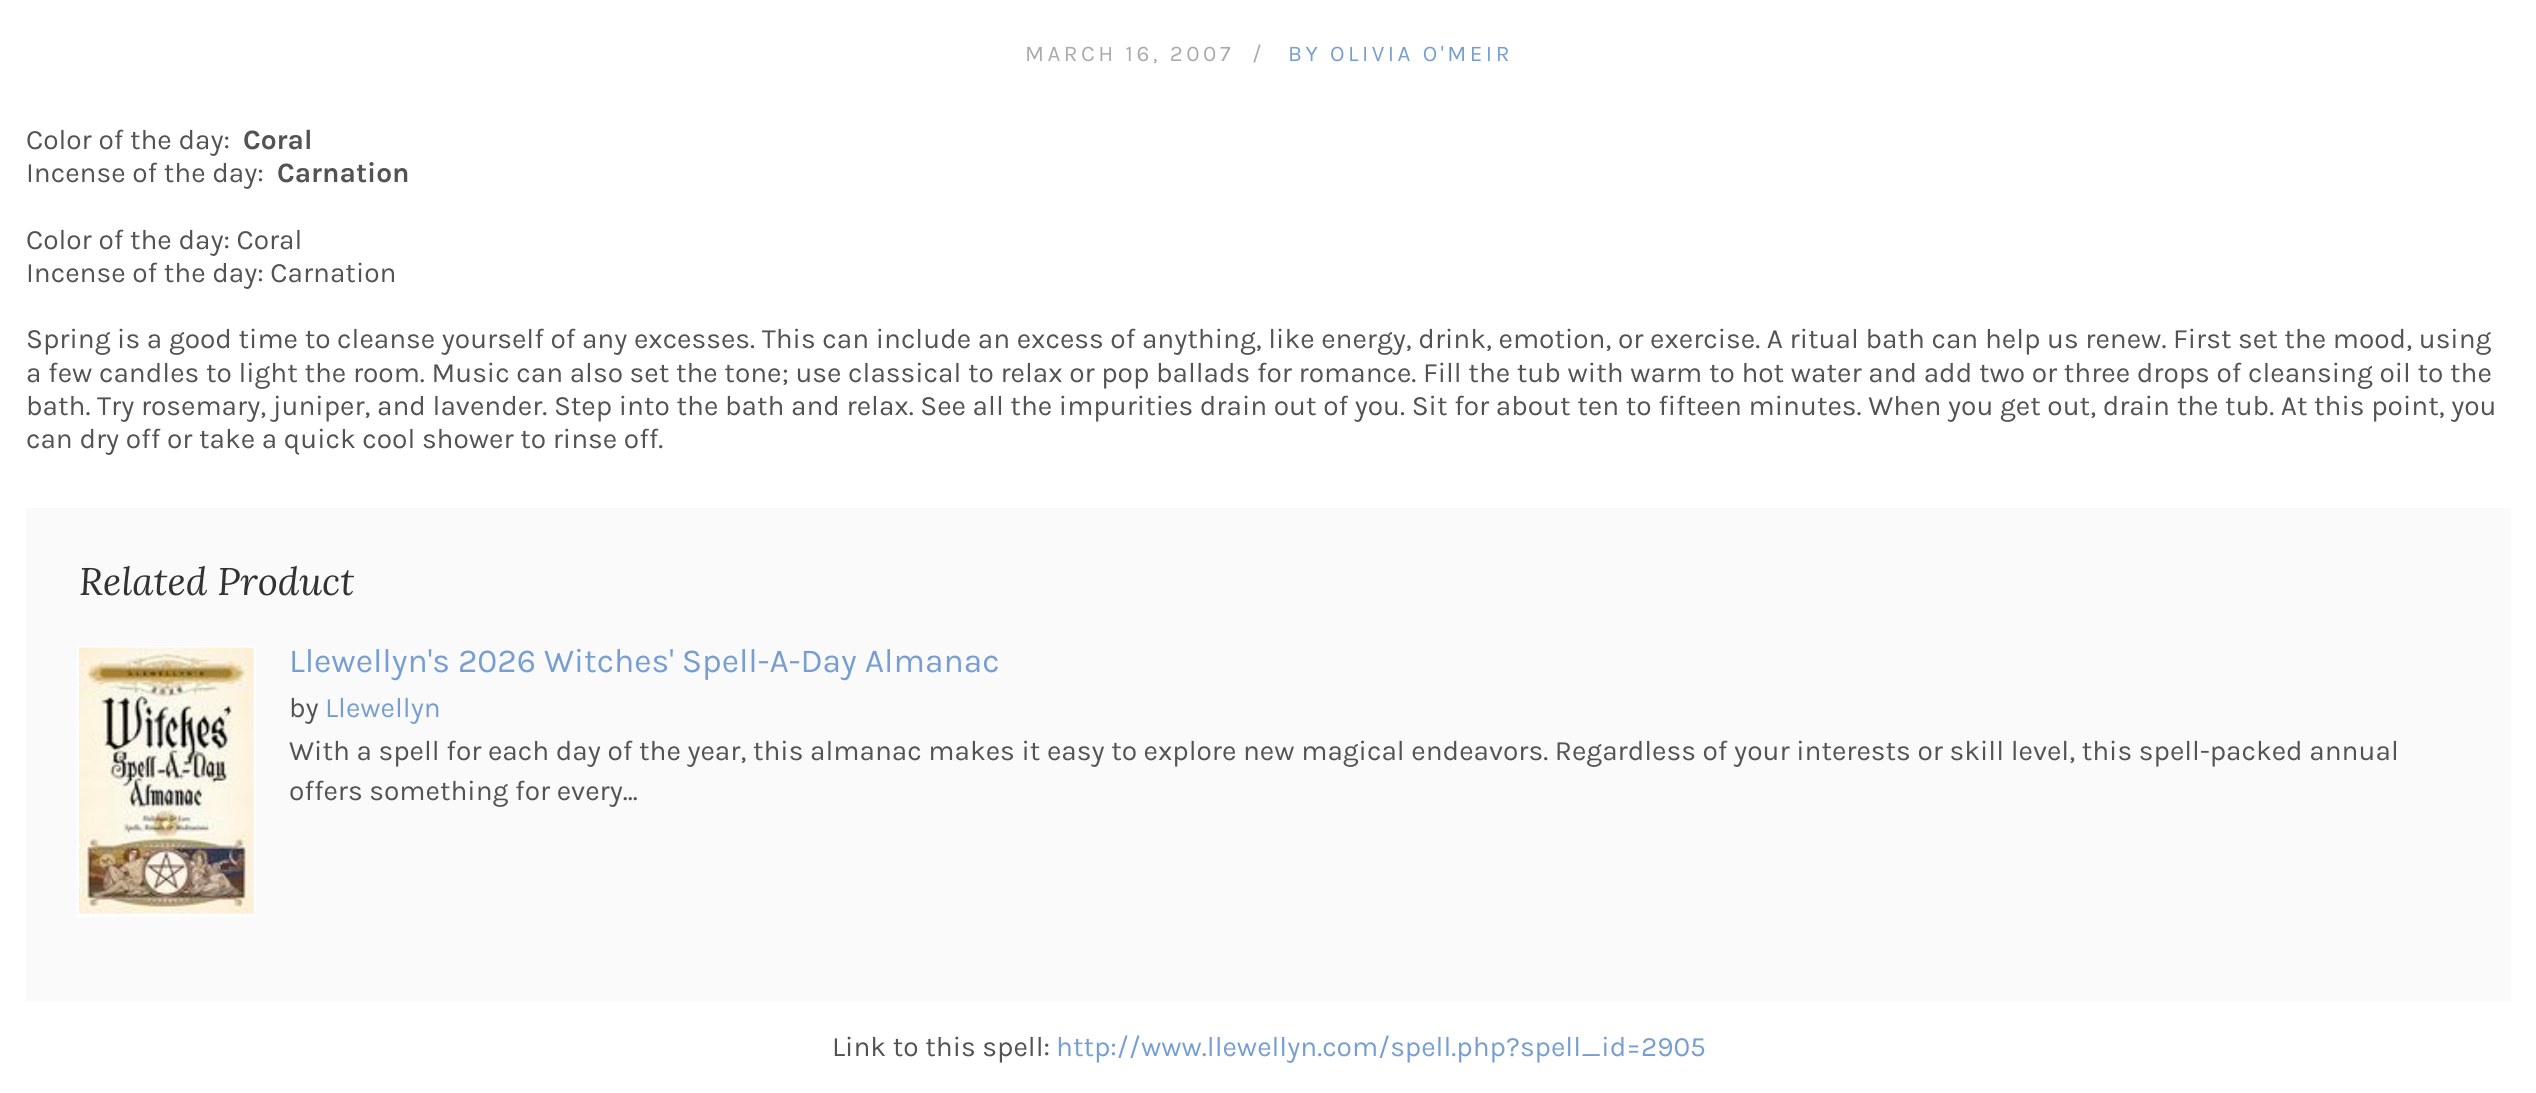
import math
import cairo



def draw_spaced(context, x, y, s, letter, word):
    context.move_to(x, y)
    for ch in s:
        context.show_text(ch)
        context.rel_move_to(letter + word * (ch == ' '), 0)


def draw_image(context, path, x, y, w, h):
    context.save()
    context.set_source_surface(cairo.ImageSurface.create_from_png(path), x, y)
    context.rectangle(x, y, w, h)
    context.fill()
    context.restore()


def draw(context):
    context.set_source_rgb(1, 1, 1)
    context.paint()
    context.set_source_rgb(250 / 255, 250 / 255, 250 / 255)
    context.rectangle(26, 508, 2485, 493)
    context.fill()
    draw_image(context, "images/1.png", 77, 646, 179, 271)
    context.select_font_face("Karla")
    context.set_font_size(22.4)
    context.set_source_rgb(170 / 255, 170 / 255, 170 / 255)
    draw_spaced(context, 1025, 61, "MARCH 16, 2007", 3.5, 0)
    draw_spaced(context, 1252, 61, "/", 3.5, 0)
    context.set_source_rgb(118 / 255, 158 / 255, 211 / 255)
    draw_spaced(context, 1288, 61, "BY OLIVIA O'MEIR", 3.5, 0)
    context.set_font_size(28)
    context.set_source_rgb(82 / 255, 84 / 255, 82 / 255)
    context.move_to(26, 149)
    context.show_text("Color of the day:")
    context.select_font_face("Karla", cairo.FontSlant.NORMAL, cairo.FontWeight.BOLD)
    context.move_to(243, 149)
    context.show_text("Coral")
    context.select_font_face("Karla")
    context.move_to(26, 182)
    context.show_text("Incense of the day:")
    context.select_font_face("Karla", cairo.FontSlant.NORMAL, cairo.FontWeight.BOLD)
    context.move_to(277, 182)
    context.show_text("Carnation")
    context.select_font_face("Karla")
    context.move_to(26, 249)
    context.show_text("Color of the day: Coral")
    context.move_to(26, 282)
    context.show_text("Incense of the day: Carnation")
    context.move_to(26, 348)
    context.show_text("Spring is a good time to cleanse yourself of any excesses. This can include an excess of anything, like energy, drink, emotion, or exercise. A ritual bath can help us renew. First set the mood, using")
    context.move_to(26, 382)
    context.show_text("a few candles to light the room. Music can also set the tone; use classical to relax or pop ballads for romance. Fill the tub with warm to hot water and add two or three drops of cleansing oil to the")
    context.move_to(26, 415)
    context.show_text("bath. Try rosemary, juniper, and lavender. Step into the bath and relax. See all the impurities drain out of you. Sit for about ten to fifteen minutes. When you get out, drain the tub. At this point, you")
    context.move_to(26, 448)
    context.show_text("can dry off or take a quick cool shower to rinse off.")
    context.select_font_face("Lora", cairo.FontSlant.ITALIC)
    context.set_font_size(38.5)
    context.set_source_rgb(51 / 255, 51 / 255, 51 / 255)
    context.move_to(79, 595)
    context.show_text("Related Product")
    context.select_font_face("Karla")
    context.set_font_size(33.6)
    context.set_source_rgb(118 / 255, 158 / 255, 211 / 255)
    context.move_to(289, 672)
    context.show_text("Llewellyn's 2026 Witches' Spell-A-Day Almanac")
    context.set_font_size(28)
    context.set_source_rgb(82 / 255, 84 / 255, 82 / 255)
    context.move_to(289, 717)
    context.show_text("by")
    context.set_source_rgb(118 / 255, 158 / 255, 211 / 255)
    context.move_to(325, 717)
    context.show_text("Llewellyn")
    context.set_source_rgb(82 / 255, 84 / 255, 82 / 255)
    context.move_to(289, 760)
    context.show_text("With a spell for each day of the year, this almanac makes it easy to explore new magical endeavors. Regardless of your interests or skill level, this spell-packed annual")
    context.move_to(289, 800)
    context.show_text("offers something for every...")
    context.move_to(832, 1056)
    context.show_text("Link to this spell:")
    context.set_source_rgb(118 / 255, 158 / 255, 211 / 255)
    context.move_to(1056, 1056)
    context.show_text("http://www.llewellyn.com/spell.php?spell_id=2905")


surface = cairo.ImageSurface(cairo.Format.RGB24, 2536, 1093)
context = cairo.Context(surface)
options = cairo.FontOptions()
options.set_hint_metrics(cairo.HintMetrics.OFF)
options.set_hint_style(cairo.HintStyle.NONE)
context.set_font_options(options)
context.set_miter_limit(4)
draw(context)
surface.write_to_png("out.png")
